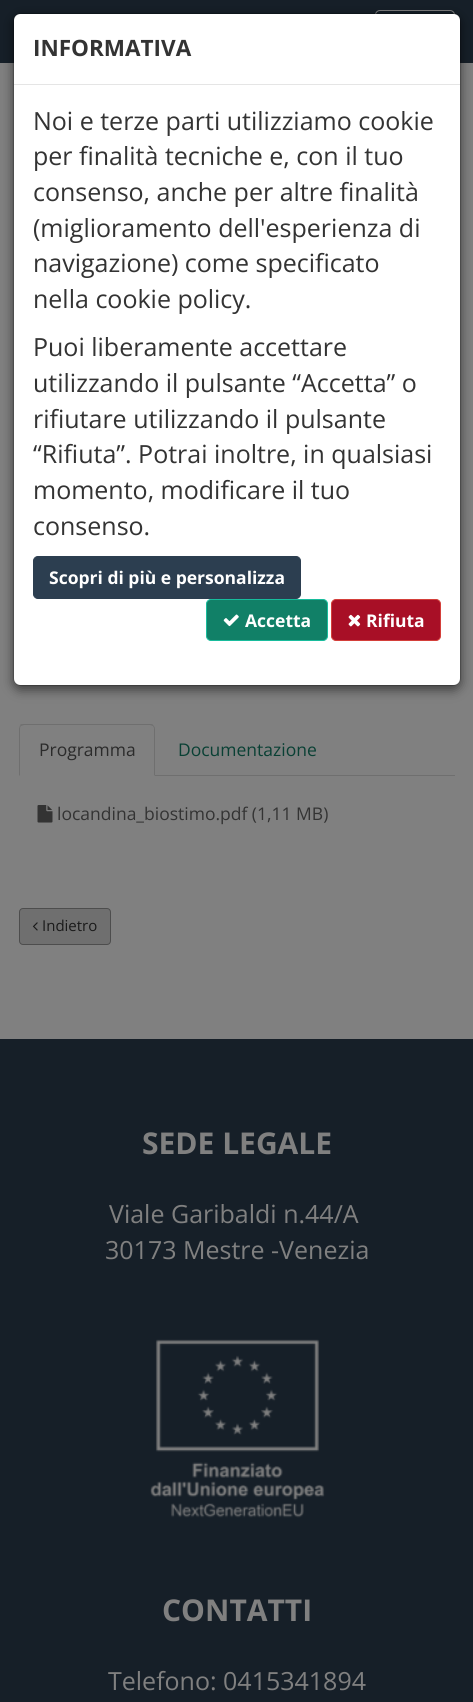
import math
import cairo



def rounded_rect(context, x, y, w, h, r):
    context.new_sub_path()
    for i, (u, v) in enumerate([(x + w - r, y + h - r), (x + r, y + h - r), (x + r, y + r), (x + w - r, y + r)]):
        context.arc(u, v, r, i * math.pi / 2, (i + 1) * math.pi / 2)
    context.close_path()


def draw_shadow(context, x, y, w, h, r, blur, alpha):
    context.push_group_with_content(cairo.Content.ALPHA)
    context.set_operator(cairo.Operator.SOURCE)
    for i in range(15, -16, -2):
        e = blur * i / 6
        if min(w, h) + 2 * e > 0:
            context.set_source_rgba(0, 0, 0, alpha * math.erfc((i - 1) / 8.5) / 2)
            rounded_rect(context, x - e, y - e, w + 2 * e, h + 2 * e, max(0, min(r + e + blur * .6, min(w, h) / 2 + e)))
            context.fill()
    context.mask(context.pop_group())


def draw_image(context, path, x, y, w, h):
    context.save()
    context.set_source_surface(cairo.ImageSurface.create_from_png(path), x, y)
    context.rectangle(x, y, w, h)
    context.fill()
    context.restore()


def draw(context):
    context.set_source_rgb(128 / 255, 128 / 255, 128 / 255)
    context.paint()
    context.set_source_rgb(22 / 255, 31 / 255, 40 / 255)
    context.rectangle(0, 0, 473, 63)
    context.fill()
    rounded_rect(context, 375.5, 10.5, 79, 42, 4.5)
    context.set_source_rgb(128 / 255, 128 / 255, 128 / 255)
    context.set_line_width(1)
    context.stroke()
    context.set_source_rgb(0, 0, 0)
    draw_shadow(context, 13, 16, 448, 674, 8, 5.5, 0.5)
    context.set_source_rgb(1, 1, 1)
    rounded_rect(context, 14, 14, 446, 671, 6)
    context.fill()
    rounded_rect(context, 13.5, 13.5, 447, 672, 7.5)
    context.set_source_rgba(0, 0, 0, 0.2)
    context.stroke()
    context.set_source_rgb(229 / 255, 229 / 255, 229 / 255)
    context.rectangle(14, 84, 446, 1)
    context.fill()
    context.set_source_rgb(44 / 255, 62 / 255, 80 / 255)
    rounded_rect(context, 33.5, 556.5, 267, 42, 4.5)
    context.fill_preserve()
    context.stroke()
    context.set_source_rgb(17 / 255, 128 / 255, 103 / 255)
    rounded_rect(context, 206.5, 599.5, 121, 41, 4.5)
    context.fill_preserve()
    context.set_source_rgb(24 / 255, 188 / 255, 156 / 255)
    context.stroke()
    draw_image(context, "images/1.png", 223, 614, 16, 13)
    context.set_source_rgb(168 / 255, 15 / 255, 38 / 255)
    rounded_rect(context, 331.5, 599.5, 109, 41, 4.5)
    context.fill_preserve()
    context.set_source_rgb(212 / 255, 63 / 255, 58 / 255)
    context.stroke()
    draw_image(context, "images/2.png", 348, 614, 13, 13)
    context.set_source_rgb(111 / 255, 111 / 255, 111 / 255)
    context.rectangle(155, 775, 300, 1)
    context.fill()
    context.new_path()
    context.move_to(24, 724)
    context.curve_to(22, 724, 21, 724, 20, 725)
    context.line_to(21, 726)
    context.line_to(24, 725)
    context.line_to(150, 725)
    context.line_to(153, 726)
    context.line_to(153, 725)
    context.curve_to(153, 724, 151, 724, 150, 724)
    context.close_path()
    context.fill()
    context.new_path()
    context.move_to(153, 725)
    context.curve_to(154, 726, 155, 727, 155, 729)
    context.line_to(155, 776)
    context.line_to(154, 775)
    context.line_to(154, 728)
    context.line_to(153, 726)
    context.close_path()
    context.fill()
    context.new_path()
    context.move_to(20, 725)
    context.curve_to(20, 726, 19, 728, 19, 729)
    context.line_to(19, 776)
    context.line_to(20, 775)
    context.line_to(20, 729)
    context.curve_to(20, 728, 20, 727, 21, 726)
    context.close_path()
    context.fill()
    draw_image(context, "images/3.png", 37, 805, 16, 18)
    rounded_rect(context, 19.5, 908.5, 91, 36, 3.5)
    context.fill_preserve()
    context.set_source_rgb(77 / 255, 77 / 255, 77 / 255)
    context.stroke()
    draw_image(context, "images/4.png", 32, 922, 6, 9)
    context.set_source_rgb(22 / 255, 31 / 255, 40 / 255)
    context.rectangle(0, 1039, 473, 663)
    context.fill()
    draw_image(context, "images/5.png", 150, 1339, 175, 179)
    context.select_font_face("Open Sans", cairo.FontSlant.NORMAL, cairo.FontWeight.BOLD)
    context.set_font_size(22.5)
    context.set_source_rgb(51 / 255, 51 / 255, 51 / 255)
    context.move_to(33, 56)
    context.show_text("INFORMATIVA")
    context.select_font_face("Open Sans")
    context.set_font_size(25)
    context.move_to(33, 130)
    context.show_text("Noi e terze parti utilizziamo cookie")
    context.move_to(33, 165)
    context.show_text("per finalità tecniche e, con il tuo")
    context.move_to(33, 201)
    context.show_text("consenso, anche per altre finalità")
    context.move_to(33, 237)
    context.show_text("(miglioramento dell'esperienza di")
    context.move_to(33, 272)
    context.show_text("navigazione) come specificato")
    context.move_to(33, 308)
    context.show_text("nella cookie policy.")
    context.move_to(33, 356)
    context.show_text("Puoi liberamente accettare")
    context.move_to(33, 392)
    context.show_text("utilizzando il pulsante “Accetta” o")
    context.move_to(33, 428)
    context.show_text("rifiutare utilizzando il pulsante")
    context.move_to(33, 463)
    context.show_text("“Rifiuta”. Potrai inoltre, in qualsiasi")
    context.move_to(33, 499)
    context.show_text("momento, modificare il tuo")
    context.move_to(33, 535)
    context.show_text("consenso.")
    context.select_font_face("Open Sans", cairo.FontSlant.NORMAL, cairo.FontWeight.BOLD)
    context.set_font_size(17.5)
    context.set_source_rgb(1, 1, 1)
    context.move_to(49, 584)
    context.show_text("Scopri di più e personalizza")
    context.move_to(245, 627)
    context.show_text("Accetta")
    context.move_to(366, 627)
    context.show_text("Rifiuta")
    context.select_font_face("Open Sans")
    context.set_source_rgb(43 / 255, 43 / 255, 43 / 255)
    context.move_to(39, 756)
    context.show_text("Programma")
    context.set_source_rgb(9 / 255, 64 / 255, 52 / 255)
    context.move_to(178, 756)
    context.show_text("Documentazione")
    context.set_source_rgb(51 / 255, 51 / 255, 51 / 255)
    context.move_to(57, 820)
    context.show_text("locandina_biostimo.pdf (1,11 MB)")
    context.set_font_size(15)
    context.set_source_rgb(26 / 255, 26 / 255, 26 / 255)
    context.move_to(42, 931)
    context.show_text("Indietro")
    context.select_font_face("Open Sans", cairo.FontSlant.NORMAL, cairo.FontWeight.BOLD)
    context.set_font_size(30)
    context.set_source_rgb(128 / 255, 128 / 255, 128 / 255)
    context.move_to(142, 1154)
    context.show_text("SEDE LEGALE")
    context.select_font_face("Open Sans")
    context.set_font_size(25)
    context.move_to(109, 1223)
    context.show_text("Viale Garibaldi n.44/A")
    context.move_to(105, 1259)
    context.show_text("30173 Mestre -Venezia")
    context.select_font_face("Open Sans", cairo.FontSlant.NORMAL, cairo.FontWeight.BOLD)
    context.set_font_size(30)
    context.move_to(162, 1621)
    context.show_text("CONTATTI")
    context.select_font_face("Open Sans")
    context.set_font_size(25)
    context.move_to(108, 1690)
    context.show_text("Telefono: 0415341894")


surface = cairo.ImageSurface(cairo.Format.RGB24, 473, 1702)
context = cairo.Context(surface)
options = cairo.FontOptions()
options.set_hint_metrics(cairo.HintMetrics.OFF)
options.set_hint_style(cairo.HintStyle.NONE)
context.set_font_options(options)
context.set_miter_limit(4)
draw(context)
surface.write_to_png("out.png")
